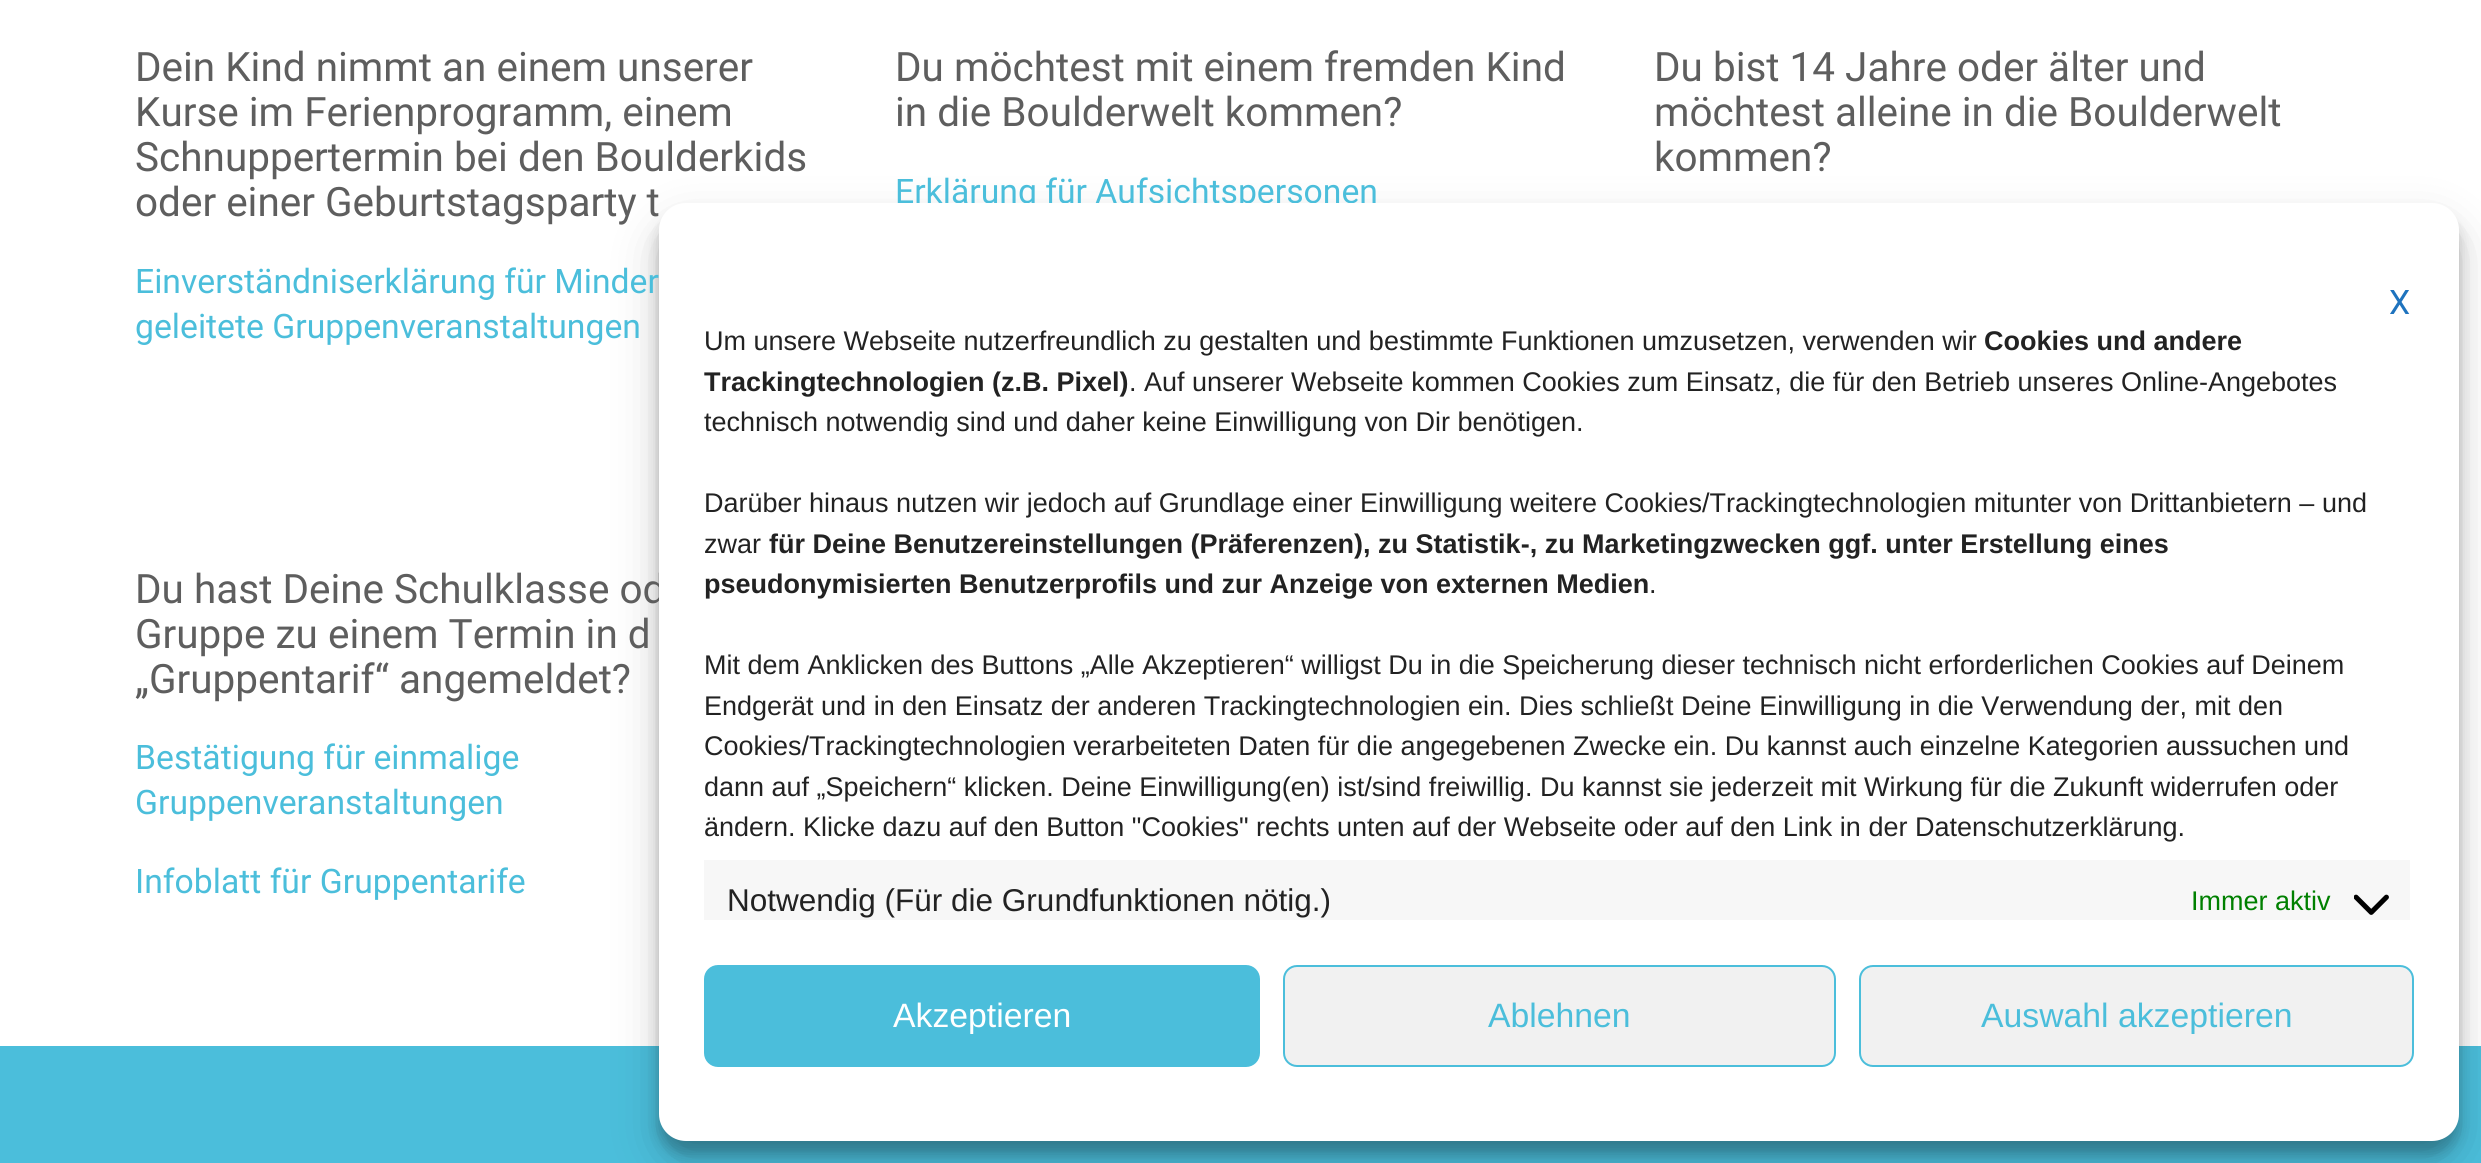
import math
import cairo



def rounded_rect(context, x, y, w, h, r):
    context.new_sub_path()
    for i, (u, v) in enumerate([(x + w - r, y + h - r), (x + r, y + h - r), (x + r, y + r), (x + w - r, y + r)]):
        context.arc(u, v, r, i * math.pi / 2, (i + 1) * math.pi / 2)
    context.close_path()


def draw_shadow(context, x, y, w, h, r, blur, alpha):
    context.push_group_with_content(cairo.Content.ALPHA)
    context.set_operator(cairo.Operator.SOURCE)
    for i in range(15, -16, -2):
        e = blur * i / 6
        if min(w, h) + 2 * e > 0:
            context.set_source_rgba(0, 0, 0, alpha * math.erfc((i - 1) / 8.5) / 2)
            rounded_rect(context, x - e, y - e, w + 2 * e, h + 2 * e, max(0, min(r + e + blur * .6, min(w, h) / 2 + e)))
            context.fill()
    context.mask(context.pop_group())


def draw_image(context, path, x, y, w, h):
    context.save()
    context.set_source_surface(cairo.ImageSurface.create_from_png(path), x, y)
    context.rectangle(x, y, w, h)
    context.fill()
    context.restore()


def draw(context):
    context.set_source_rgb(1, 1, 1)
    context.paint()
    context.set_source_rgb(75 / 255, 190 / 255, 219 / 255)
    context.rectangle(0, 1046, 2481, 117)
    context.fill()
    context.set_source_rgb(0, 0, 0)
    draw_shadow(context, 659, 216, 1800, 938, 27, 7, 0.23)
    draw_shadow(context, 659, 225, 1800, 938, 27, 22.5, 0.19)
    context.select_font_face("Roboto")
    context.set_font_size(40.5)
    context.set_source_rgb(94 / 255, 94 / 255, 94 / 255)
    context.move_to(135, 81)
    context.show_text("Dein Kind nimmt an einem unserer")
    context.move_to(135, 126)
    context.show_text("Kurse im Ferienprogramm, einem")
    context.move_to(135, 171)
    context.show_text("Schnuppertermin bei den Boulderkids")
    context.move_to(135, 216)
    context.show_text("oder einer Geburtstagsparty t")
    context.set_font_size(33.75)
    context.set_source_rgb(75 / 255, 190 / 255, 219 / 255)
    context.move_to(135, 293)
    context.show_text("Einverständniserklärung für Minder")
    context.move_to(135, 338)
    context.show_text("geleitete Gruppenveranstaltungen")
    context.set_font_size(40.5)
    context.set_source_rgb(94 / 255, 94 / 255, 94 / 255)
    context.move_to(895, 81)
    context.show_text("Du möchtest mit einem fremden Kind")
    context.move_to(895, 126)
    context.show_text("in die Boulderwelt kommen?")
    context.set_font_size(33.75)
    context.set_source_rgb(75 / 255, 190 / 255, 219 / 255)
    context.move_to(895, 203)
    context.show_text("Erklärung für Aufsichtspersonen")
    context.set_font_size(40.5)
    context.set_source_rgb(94 / 255, 94 / 255, 94 / 255)
    context.move_to(1654, 81)
    context.show_text("Du bist 14 Jahre oder älter und")
    context.move_to(1654, 126)
    context.show_text("möchtest alleine in die Boulderwelt")
    context.move_to(1654, 171)
    context.show_text("kommen?")
    context.move_to(135, 603)
    context.show_text("Du hast Deine Schulklasse od")
    context.move_to(135, 648)
    context.show_text("Gruppe zu einem Termin in d")
    context.move_to(135, 693)
    context.show_text("„Gruppentarif“ angemeldet?")
    context.set_font_size(33.75)
    context.set_source_rgb(75 / 255, 190 / 255, 219 / 255)
    context.move_to(135, 769)
    context.show_text("Bestätigung für einmalige")
    context.move_to(135, 814)
    context.show_text("Gruppenveranstaltungen")
    context.move_to(135, 893)
    context.show_text("Infoblatt für Gruppentarife")
    context.set_source_rgb(1, 1, 1)
    rounded_rect(context, 659, 203, 1800, 938, 27)
    context.fill()
    context.set_source_rgb(30 / 255, 115 / 255, 190 / 255)
    context.move_to(2389, 314)
    context.show_text("X")
    context.select_font_face("Liberation Sans")
    context.set_font_size(27)
    context.set_source_rgb(34 / 255, 34 / 255, 34 / 255)
    context.move_to(704, 350)
    context.show_text("Um unsere Webseite nutzerfreundlich zu gestalten und bestimmte Funktionen umzusetzen, verwenden wir")
    context.select_font_face("Liberation Sans", cairo.FontSlant.NORMAL, cairo.FontWeight.BOLD)
    context.move_to(1984, 350)
    context.show_text("Cookies und andere")
    context.move_to(704, 391)
    context.show_text("Trackingtechnologien (z.B. Pixel)")
    context.select_font_face("Liberation Sans")
    context.move_to(1129, 391)
    context.show_text(". Auf unserer Webseite kommen Cookies zum Einsatz, die für den Betrieb unseres Online-Angebotes")
    context.move_to(704, 431)
    context.show_text("technisch notwendig sind und daher keine Einwilligung von Dir benötigen.")
    context.move_to(704, 512)
    context.show_text("Darüber hinaus nutzen wir jedoch auf Grundlage einer Einwilligung weitere Cookies/Trackingtechnologien mitunter von Drittanbietern – und")
    context.move_to(704, 553)
    context.show_text("zwar")
    context.select_font_face("Liberation Sans", cairo.FontSlant.NORMAL, cairo.FontWeight.BOLD)
    context.move_to(769, 553)
    context.show_text("für Deine Benutzereinstellungen (Präferenzen), zu Statistik-, zu Marketingzwecken ggf. unter Erstellung eines")
    context.move_to(704, 593)
    context.show_text("pseudonymisierten Benutzerprofils und zur Anzeige von externen Medien")
    context.select_font_face("Liberation Sans")
    context.move_to(1649, 593)
    context.show_text(".")
    context.move_to(704, 674)
    context.show_text("Mit dem Anklicken des Buttons „Alle Akzeptieren“ willigst Du in die Speicherung dieser technisch nicht erforderlichen Cookies auf Deinem")
    context.move_to(704, 715)
    context.show_text("Endgerät und in den Einsatz der anderen Trackingtechnologien ein. Dies schließt Deine Einwilligung in die Verwendung der, mit den")
    context.move_to(704, 755)
    context.show_text("Cookies/Trackingtechnologien verarbeiteten Daten für die angegebenen Zwecke ein. Du kannst auch einzelne Kategorien aussuchen und")
    context.move_to(704, 796)
    context.show_text("dann auf „Speichern“ klicken. Deine Einwilligung(en) ist/sind freiwillig. Du kannst sie jederzeit mit Wirkung für die Zukunft widerrufen oder")
    context.move_to(704, 836)
    context.show_text("ändern. Klicke dazu auf den Button \"Cookies\" rechts unten auf der Webseite oder auf den Link in der Datenschutzerklärung.")
    context.set_source_rgb(247 / 255, 247 / 255, 247 / 255)
    context.rectangle(704, 860, 1706, 60)
    context.fill()
    context.set_font_size(31.5)
    context.set_source_rgb(34 / 255, 34 / 255, 34 / 255)
    context.move_to(727, 911)
    context.show_text("Notwendig (Für die Grundfunktionen nötig.)")
    context.set_font_size(27)
    context.set_source_rgb(0, 128 / 255, 0)
    context.move_to(2191, 910)
    context.show_text("Immer aktiv")
    draw_image(context, "images/1.png", 2354, 894, 35, 21)
    context.set_source_rgb(75 / 255, 190 / 255, 219 / 255)
    rounded_rect(context, 705, 966, 554, 100, 13)
    context.fill_preserve()
    context.stroke()
    context.set_font_size(33.75)
    context.set_source_rgb(1, 1, 1)
    context.move_to(893, 1027)
    context.show_text("Akzeptieren")
    context.set_source_rgb(241 / 255, 241 / 255, 241 / 255)
    rounded_rect(context, 1284, 966, 551, 100, 13)
    context.fill_preserve()
    context.set_source_rgb(75 / 255, 190 / 255, 219 / 255)
    context.stroke()
    context.move_to(1488, 1027)
    context.show_text("Ablehnen")
    context.set_source_rgb(241 / 255, 241 / 255, 241 / 255)
    rounded_rect(context, 1860, 966, 553, 100, 13)
    context.fill_preserve()
    context.set_source_rgb(75 / 255, 190 / 255, 219 / 255)
    context.stroke()
    context.move_to(1981, 1027)
    context.show_text("Auswahl akzeptieren")


surface = cairo.ImageSurface(cairo.Format.RGB24, 2481, 1163)
context = cairo.Context(surface)
options = cairo.FontOptions()
options.set_hint_metrics(cairo.HintMetrics.OFF)
options.set_hint_style(cairo.HintStyle.NONE)
context.set_font_options(options)
context.set_miter_limit(4)
draw(context)
surface.write_to_png("out.png")
